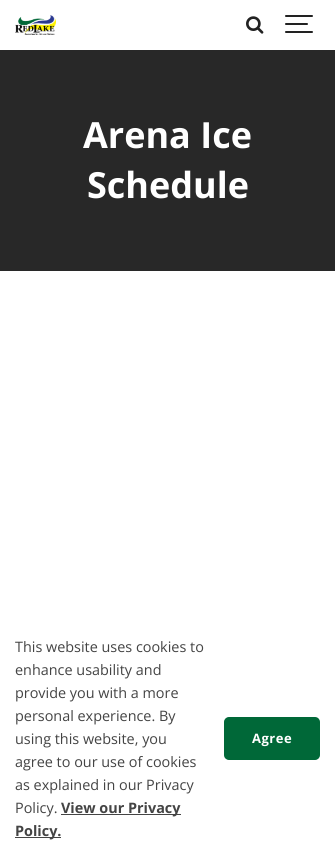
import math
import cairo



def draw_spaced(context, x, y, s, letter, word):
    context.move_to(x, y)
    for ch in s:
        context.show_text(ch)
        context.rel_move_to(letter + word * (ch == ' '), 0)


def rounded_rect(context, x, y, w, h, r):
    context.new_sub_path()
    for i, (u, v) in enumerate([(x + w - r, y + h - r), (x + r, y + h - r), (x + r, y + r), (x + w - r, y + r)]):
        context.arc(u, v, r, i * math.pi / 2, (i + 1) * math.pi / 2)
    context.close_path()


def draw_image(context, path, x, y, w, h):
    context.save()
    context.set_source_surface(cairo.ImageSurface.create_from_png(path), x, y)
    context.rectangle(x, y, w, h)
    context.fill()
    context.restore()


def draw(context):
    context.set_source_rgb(1, 1, 1)
    context.paint()
    draw_image(context, "images/1.png", 15, 15, 41, 20)
    draw_image(context, "images/2.png", 246, 16, 18, 18)
    context.set_source_rgb(34 / 255, 34 / 255, 34 / 255)
    rounded_rect(context, 285, 23, 23, 2, 1)
    context.fill()
    rounded_rect(context, 285, 15, 28, 2, 1)
    context.fill()
    rounded_rect(context, 285, 31, 28, 2, 1)
    context.fill()
    context.set_source_rgb(40 / 255, 40 / 255, 40 / 255)
    context.rectangle(0, 50, 335, 221)
    context.fill()
    context.set_source_rgb(68 / 255, 68 / 255, 68 / 255)
    context.rectangle(61, 814, 120, 1)
    context.fill()
    context.rectangle(15, 837, 46, 1)
    context.fill()
    context.set_source_rgb(0, 104 / 255, 56 / 255)
    rounded_rect(context, 225, 718, 94, 41, 4)
    context.fill_preserve()
    context.stroke()
    context.select_font_face("Open Sans", cairo.FontSlant.NORMAL, cairo.FontWeight.BOLD)
    context.set_font_size(36)
    context.set_source_rgb(1, 1, 1)
    context.move_to(83, 148)
    context.show_text("Arena Ice")
    context.move_to(87, 198)
    context.show_text("Schedule")
    context.select_font_face("Open Sans")
    context.set_font_size(14.4)
    context.set_source_rgb(68 / 255, 68 / 255, 68 / 255)
    context.move_to(15, 652)
    context.show_text("This website uses cookies to")
    context.move_to(15, 675)
    context.show_text("enhance usability and")
    context.move_to(15, 698)
    context.show_text("provide you with a more")
    context.move_to(15, 721)
    context.show_text("personal experience. By")
    context.move_to(15, 744)
    context.show_text("using this website, you")
    context.move_to(15, 767)
    context.show_text("agree to our use of cookies")
    context.move_to(15, 790)
    context.show_text("as explained in our Privacy")
    context.move_to(15, 813)
    context.show_text("Policy.")
    context.select_font_face("Open Sans", cairo.FontSlant.NORMAL, cairo.FontWeight.BOLD)
    context.move_to(61, 813)
    context.show_text("View our Privacy")
    context.move_to(15, 836)
    context.show_text("Policy.")
    context.set_font_size(13)
    context.set_source_rgb(1, 1, 1)
    draw_spaced(context, 252, 743, "Agree", 0.5, 0)


surface = cairo.ImageSurface(cairo.Format.RGB24, 335, 857)
context = cairo.Context(surface)
options = cairo.FontOptions()
options.set_hint_metrics(cairo.HintMetrics.OFF)
options.set_hint_style(cairo.HintStyle.NONE)
context.set_font_options(options)
context.set_miter_limit(4)
draw(context)
surface.write_to_png("out.png")
